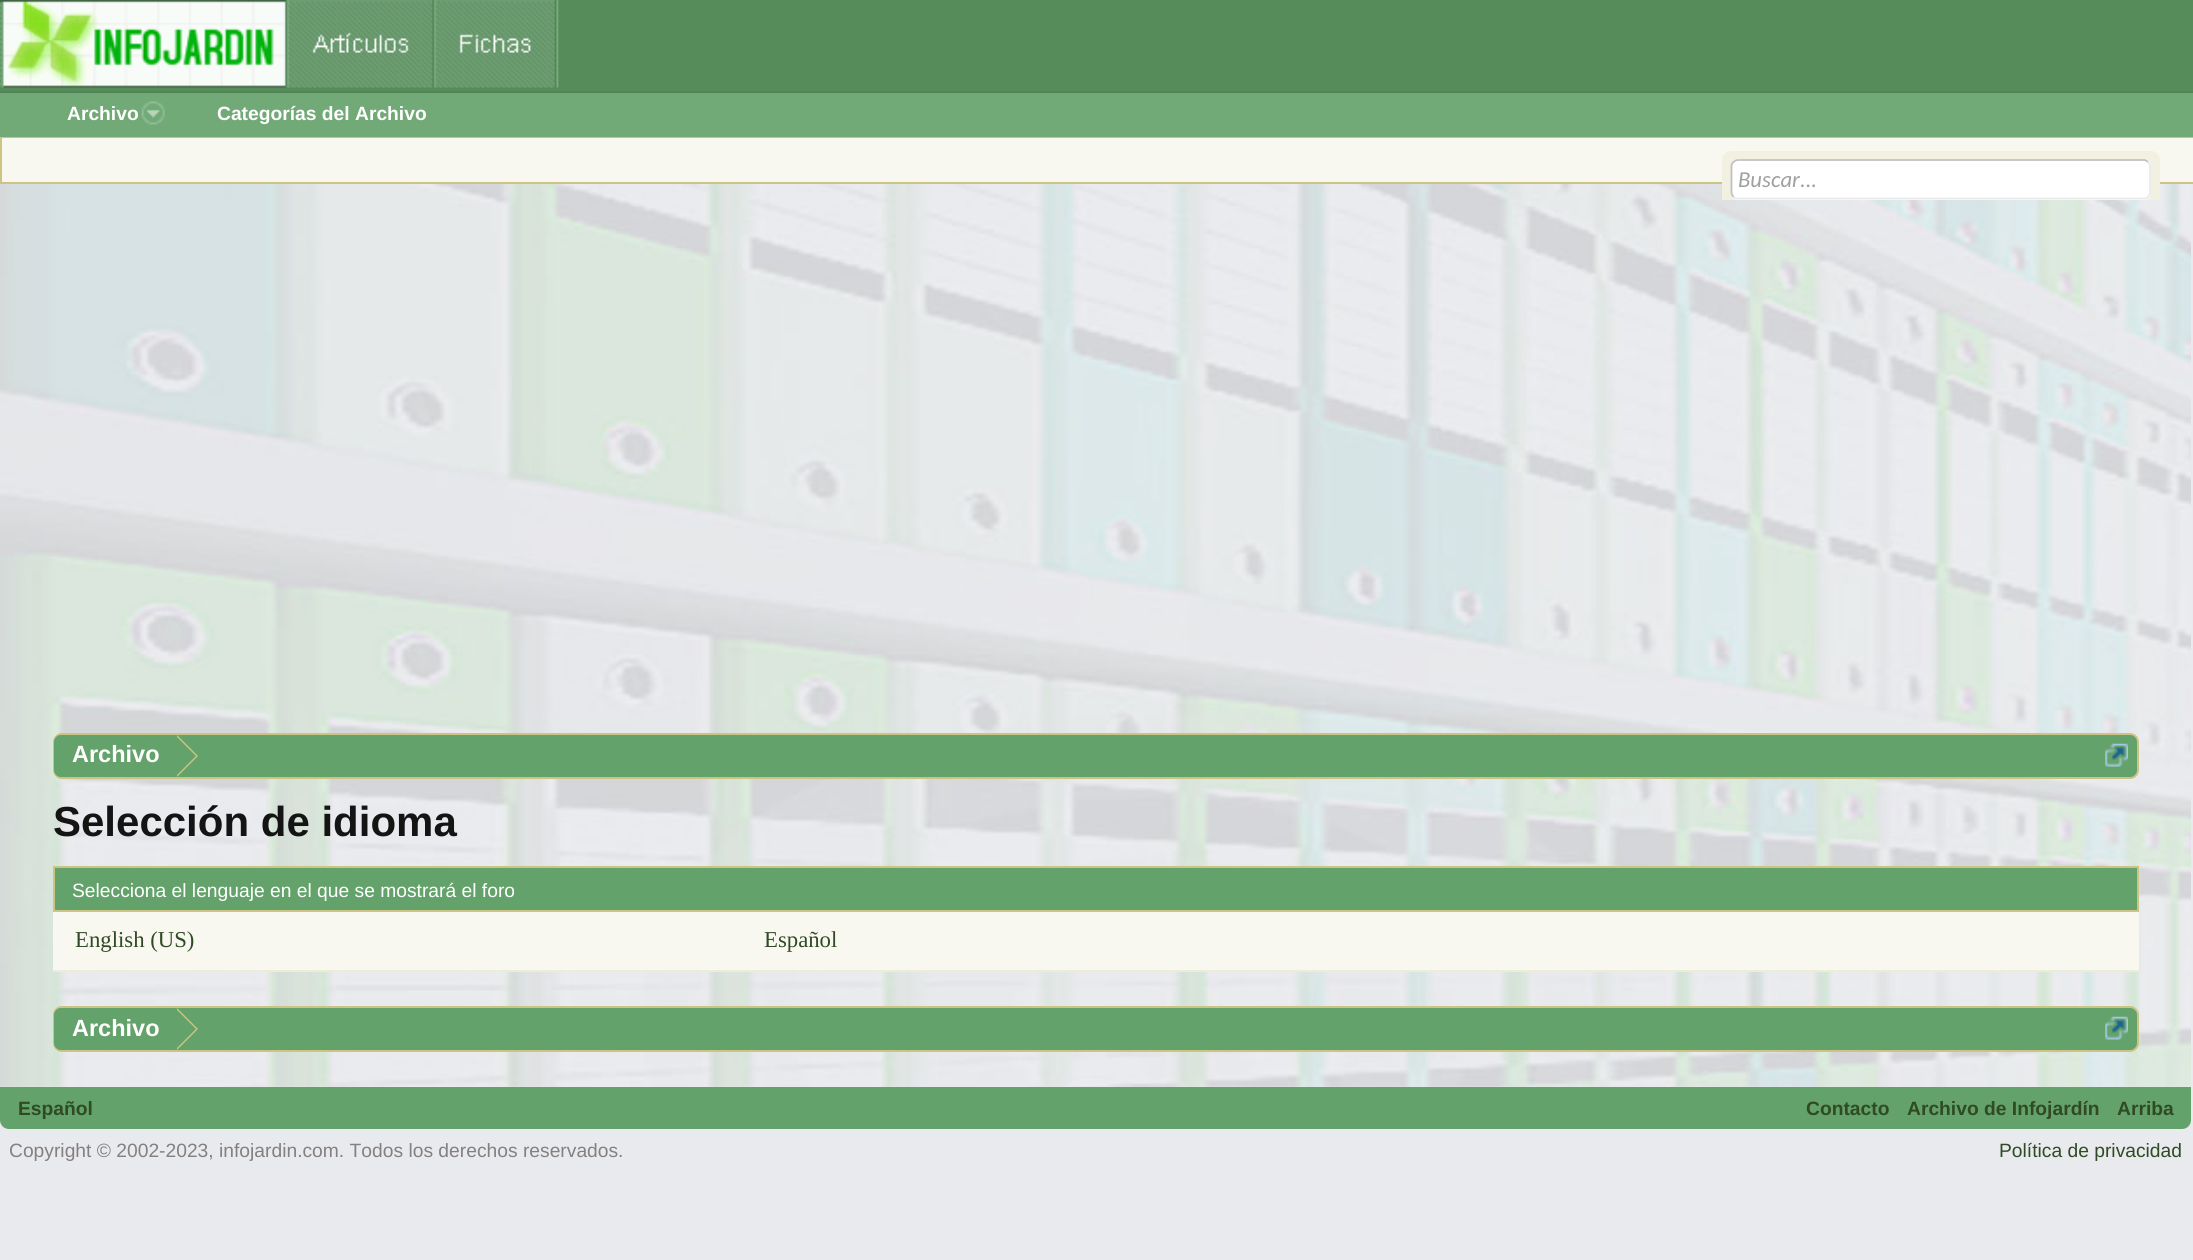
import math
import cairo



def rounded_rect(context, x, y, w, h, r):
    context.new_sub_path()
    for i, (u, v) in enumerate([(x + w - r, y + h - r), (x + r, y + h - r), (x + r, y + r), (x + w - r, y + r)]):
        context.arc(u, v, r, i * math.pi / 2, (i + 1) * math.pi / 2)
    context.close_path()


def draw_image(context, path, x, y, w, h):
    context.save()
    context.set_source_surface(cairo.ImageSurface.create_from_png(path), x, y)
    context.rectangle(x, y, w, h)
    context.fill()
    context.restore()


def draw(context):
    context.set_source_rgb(233 / 255, 234 / 255, 237 / 255)
    context.paint()
    context.set_source_rgb(85 / 255, 140 / 255, 90 / 255)
    context.rectangle(0, 0, 2193, 91)
    context.fill()
    draw_image(context, "images/1.png", 0, 0, 559, 88)
    context.set_source_rgb(113 / 255, 169 / 255, 119 / 255)
    context.rectangle(0, 93, 2193, 44)
    context.fill()
    context.set_source_rgb(81 / 255, 132 / 255, 86 / 255)
    context.rectangle(0, 91, 2193, 2)
    context.fill()
    context.set_source_rgb(203 / 255, 196 / 255, 131 / 255)
    context.rectangle(0, 137, 2193, 1)
    context.fill()
    draw_image(context, "images/2.png", 141, 101, 24, 24)
    context.set_source_rgb(248 / 255, 248 / 255, 241 / 255)
    context.rectangle(2, 138, 2191, 44)
    context.fill()
    context.set_source_rgb(203 / 255, 196 / 255, 131 / 255)
    context.rectangle(0, 182, 2193, 2)
    context.fill()
    context.rectangle(0, 138, 2, 46)
    context.fill()
    draw_image(context, "images/3.png", 0, 184, 2191, 903)
    context.set_source_rgb(242 / 255, 240 / 255, 225 / 255)
    rounded_rect(context, 1722, 151, 438, 49, 9)
    context.fill()
    context.rectangle(1722, 192, 438, 8)
    context.fill()
    context.set_source_rgb(1, 1, 1)
    rounded_rect(context, 1731, 159, 420, 41, 7)
    context.fill()
    context.new_path()
    context.move_to(2148, 162)
    context.curve_to(2149, 163, 2150, 164.5, 2150, 166)
    context.line_to(2150, 192.5)
    context.curve_to(2150, 194, 2149, 195.5, 2148, 197)
    context.curve_to(2147, 198, 2145.5, 198.5, 2144, 198.5)
    context.line_to(1738, 198.5)
    context.curve_to(1736, 198.5, 1734.5, 198, 1733.5, 197)
    context.set_source_rgb(233 / 255, 233 / 255, 233 / 255)
    context.set_line_width(1.8)
    context.stroke()
    context.new_path()
    context.move_to(1733.5, 197)
    context.curve_to(1732.5, 195.5, 1731.5, 194, 1731.5, 192.5)
    context.line_to(1731.5, 166)
    context.curve_to(1731.5, 164.5, 1732.5, 163, 1733.5, 162)
    context.curve_to(1734.5, 161, 1736, 160, 1738, 160)
    context.line_to(2144, 160)
    context.curve_to(2145.5, 160, 2147, 161, 2148, 162)
    context.set_source_rgb(192 / 255, 192 / 255, 192 / 255)
    context.stroke()
    context.set_source_rgb(100 / 255, 162 / 255, 107 / 255)
    rounded_rect(context, 54, 734, 2084, 44, 8)
    context.fill_preserve()
    context.set_source_rgb(203 / 255, 196 / 255, 131 / 255)
    context.set_line_width(2)
    context.stroke()
    context.save()
    rounded_rect(context, 54, 735, 2083, 42, 7)
    context.clip()
    context.set_source_rgb(100 / 255, 162 / 255, 107 / 255)
    context.new_path()
    context.move_to(61, 735)
    context.line_to(177, 735)
    context.line_to(177, 779)
    context.line_to(61, 779)
    context.curve_to(57, 779, 54, 776, 54, 772)
    context.line_to(54, 742)
    context.curve_to(54, 738, 57, 735, 61, 735)
    context.close_path()
    context.fill()
    context.restore()
    context.new_path()
    context.move_to(177, 777)
    context.line_to(177, 735)
    context.line_to(198, 756)
    context.close_path()
    context.fill()
    context.set_source_rgb(100 / 255, 162 / 255, 107 / 255)
    context.new_path()
    context.move_to(175, 777)
    context.line_to(175, 735)
    context.line_to(196, 756)
    context.close_path()
    context.fill()
    draw_image(context, "images/4.png", 2105, 743, 23, 24)
    context.rectangle(54, 867, 2084, 44)
    context.fill_preserve()
    context.set_source_rgb(203 / 255, 196 / 255, 131 / 255)
    context.stroke()
    context.set_source_rgb(248 / 255, 248 / 255, 241 / 255)
    context.rectangle(53, 912, 2086, 58)
    context.fill()
    context.set_source_rgb(236 / 255, 236 / 255, 217 / 255)
    context.rectangle(53, 970, 2086, 2)
    context.fill()
    context.set_source_rgb(100 / 255, 162 / 255, 107 / 255)
    rounded_rect(context, 54, 1007, 2084, 44, 8)
    context.fill_preserve()
    context.set_source_rgb(203 / 255, 196 / 255, 131 / 255)
    context.stroke()
    context.save()
    rounded_rect(context, 54, 1008, 2083, 42, 7)
    context.clip()
    context.set_source_rgb(100 / 255, 162 / 255, 107 / 255)
    context.new_path()
    context.move_to(61, 1008)
    context.line_to(177, 1008)
    context.line_to(177, 1052)
    context.line_to(61, 1052)
    context.curve_to(57, 1052, 54, 1049, 54, 1045)
    context.line_to(54, 1015)
    context.curve_to(54, 1011, 57, 1008, 61, 1008)
    context.close_path()
    context.fill()
    context.restore()
    context.new_path()
    context.move_to(177, 1050)
    context.line_to(177, 1008)
    context.line_to(198, 1029)
    context.close_path()
    context.fill()
    context.set_source_rgb(100 / 255, 162 / 255, 107 / 255)
    context.new_path()
    context.move_to(175, 1050)
    context.line_to(175, 1008)
    context.line_to(196, 1029)
    context.close_path()
    context.fill()
    draw_image(context, "images/4.png", 2105, 1016, 23, 24)
    context.new_path()
    context.move_to(0, 1087)
    context.line_to(2191, 1087)
    context.line_to(2191, 1120)
    context.curve_to(2191, 1125, 2187, 1129, 2182, 1129)
    context.line_to(9, 1129)
    context.curve_to(4, 1129, 0, 1125, 0, 1120)
    context.close_path()
    context.fill()
    context.select_font_face("Liberation Sans", cairo.FontSlant.NORMAL, cairo.FontWeight.BOLD)
    context.set_font_size(19.25)
    context.set_source_rgb(1, 1, 1)
    context.move_to(67, 120)
    context.show_text("Archivo")
    context.move_to(217, 120)
    context.show_text("Categorías del Archivo")
    context.select_font_face("Carlito", cairo.FontSlant.ITALIC)
    context.set_font_size(22.75)
    context.set_source_rgb(160 / 255, 160 / 255, 160 / 255)
    context.move_to(1738, 187)
    context.show_text("Buscar...")
    context.select_font_face("Liberation Sans", cairo.FontSlant.NORMAL, cairo.FontWeight.BOLD)
    context.set_font_size(23.5)
    context.set_source_rgb(1, 1, 1)
    context.move_to(72, 762)
    context.show_text("Archivo")
    context.set_font_size(42)
    context.set_source_rgb(20 / 255, 20 / 255, 20 / 255)
    context.move_to(53, 836)
    context.show_text("Selección de idioma")
    context.select_font_face("Liberation Sans")
    context.set_font_size(19.25)
    context.set_source_rgb(1, 1, 1)
    context.move_to(72, 897)
    context.show_text("Selecciona el lenguaje en el que se mostrará el foro")
    context.select_font_face("Liberation Serif")
    context.set_font_size(22.75)
    context.set_source_rgb(47 / 255, 74 / 255, 36 / 255)
    context.move_to(75, 947)
    context.show_text("English (US)")
    context.move_to(764, 947)
    context.show_text("Español")
    context.select_font_face("Liberation Sans", cairo.FontSlant.NORMAL, cairo.FontWeight.BOLD)
    context.set_font_size(23.5)
    context.set_source_rgb(1, 1, 1)
    context.move_to(72, 1036)
    context.show_text("Archivo")
    context.set_font_size(19.25)
    context.set_source_rgb(47 / 255, 74 / 255, 36 / 255)
    context.move_to(18, 1115)
    context.show_text("Español")
    context.move_to(1806, 1115)
    context.show_text("Contacto")
    context.move_to(1907, 1115)
    context.show_text("Archivo de Infojardín")
    context.move_to(2117, 1115)
    context.show_text("Arriba")
    context.select_font_face("Liberation Sans")
    context.set_source_rgb(132 / 255, 128 / 255, 128 / 255)
    context.move_to(9, 1157)
    context.show_text("Copyright © 2002-2023, infojardin.com. Todos los derechos reservados.")
    context.set_source_rgb(47 / 255, 74 / 255, 36 / 255)
    context.move_to(1999, 1157)
    context.show_text("Política de privacidad")


surface = cairo.ImageSurface(cairo.Format.RGB24, 2193, 1260)
context = cairo.Context(surface)
options = cairo.FontOptions()
options.set_hint_metrics(cairo.HintMetrics.OFF)
options.set_hint_style(cairo.HintStyle.NONE)
context.set_font_options(options)
context.set_miter_limit(4)
draw(context)
surface.write_to_png("out.png")
